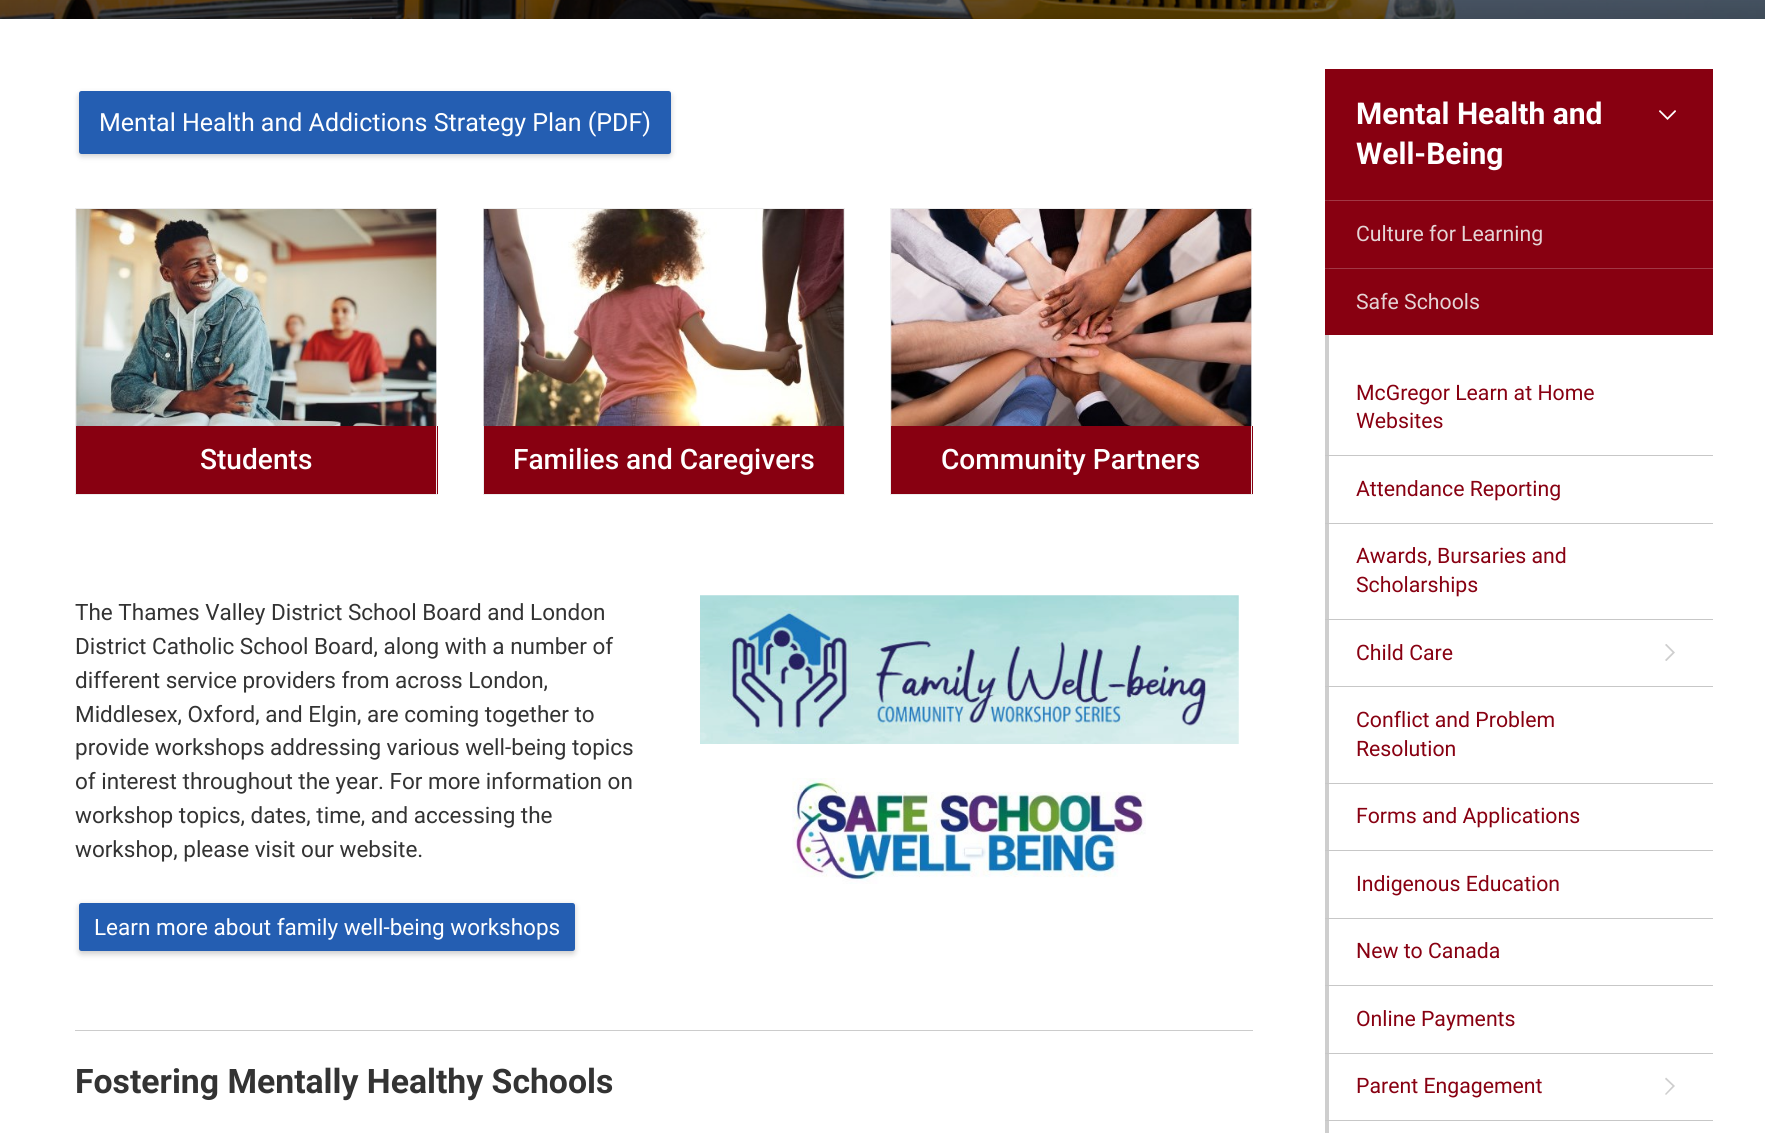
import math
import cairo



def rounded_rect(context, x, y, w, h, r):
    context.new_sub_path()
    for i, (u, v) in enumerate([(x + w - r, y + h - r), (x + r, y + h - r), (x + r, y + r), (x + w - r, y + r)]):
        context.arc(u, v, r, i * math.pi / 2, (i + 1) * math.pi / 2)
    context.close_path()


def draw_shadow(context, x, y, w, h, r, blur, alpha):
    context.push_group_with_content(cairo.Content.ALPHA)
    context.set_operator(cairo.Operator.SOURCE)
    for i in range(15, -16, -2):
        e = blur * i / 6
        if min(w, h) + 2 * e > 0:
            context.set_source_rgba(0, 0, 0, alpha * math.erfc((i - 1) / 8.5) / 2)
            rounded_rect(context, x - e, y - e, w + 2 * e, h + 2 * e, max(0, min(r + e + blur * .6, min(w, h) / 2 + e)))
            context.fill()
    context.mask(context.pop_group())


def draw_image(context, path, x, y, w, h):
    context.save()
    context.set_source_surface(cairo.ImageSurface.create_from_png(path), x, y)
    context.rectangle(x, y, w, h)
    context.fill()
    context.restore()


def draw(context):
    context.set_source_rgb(1, 1, 1)
    context.paint()
    context.set_source_rgb(162 / 255, 56 / 255, 69 / 255)
    context.rectangle(1325, 268, 388, 1)
    context.fill()
    context.rectangle(1325, 200, 388, 1)
    context.fill()
    draw_image(context, "images/1.png", 0, 0, 1765, 19)
    context.set_source_rgb(0, 0, 0)
    draw_shadow(context, 79, 94, 592, 62, 2.5, 3, 0.2)
    context.set_source_rgb(36 / 255, 94 / 255, 178 / 255)
    rounded_rect(context, 79, 91, 592, 63, 2.5)
    context.fill()
    context.set_source_rgb(238 / 255, 238 / 255, 238 / 255)
    context.rectangle(75, 208, 363, 1)
    context.fill()
    context.rectangle(75, 208, 1, 218)
    context.fill()
    context.rectangle(436, 208, 1, 218)
    context.fill()
    draw_image(context, "images/2.png", 76, 209, 361, 217)
    context.set_source_rgb(136 / 255, 0, 17 / 255)
    context.rectangle(76, 426, 362, 68)
    context.fill()
    context.set_source_rgb(238 / 255, 238 / 255, 238 / 255)
    context.rectangle(436, 426, 1, 69)
    context.fill()
    context.rectangle(75, 494, 363, 1)
    context.fill()
    context.rectangle(75, 426, 1, 69)
    context.fill()
    context.rectangle(483, 208, 362, 1)
    context.fill()
    context.rectangle(483, 208, 1, 218)
    context.fill()
    context.rectangle(844, 208, 1, 287)
    context.fill()
    draw_image(context, "images/3.png", 483, 209, 361, 217)
    context.set_source_rgb(136 / 255, 0, 17 / 255)
    context.rectangle(484, 426, 360, 68)
    context.fill()
    context.set_source_rgb(238 / 255, 238 / 255, 238 / 255)
    context.rectangle(483, 494, 362, 1)
    context.fill()
    context.rectangle(483, 426, 1, 69)
    context.fill()
    context.rectangle(890, 208, 363, 1)
    context.fill()
    context.rectangle(890, 208, 1, 218)
    context.fill()
    context.rectangle(1251, 208, 1, 218)
    context.fill()
    draw_image(context, "images/4.png", 891, 209, 361, 217)
    context.set_source_rgb(136 / 255, 0, 17 / 255)
    context.rectangle(891, 426, 362, 68)
    context.fill()
    context.set_source_rgb(238 / 255, 238 / 255, 238 / 255)
    context.rectangle(1251, 426, 1, 69)
    context.fill()
    context.rectangle(890, 494, 363, 1)
    context.fill()
    context.rectangle(890, 426, 1, 69)
    context.fill()
    context.set_source_rgb(0, 0, 0)
    draw_shadow(context, 79, 905, 496, 49, 2.5, 3, 0.2)
    context.set_source_rgb(36 / 255, 94 / 255, 178 / 255)
    rounded_rect(context, 79, 903, 496, 48, 2.5)
    context.fill()
    draw_image(context, "images/5.png", 700, 595, 539, 149)
    draw_image(context, "images/6.png", 792, 778, 354, 106)
    context.set_source_rgb(204 / 255, 204 / 255, 204 / 255)
    context.rectangle(75, 1030, 1178, 1)
    context.fill()
    context.set_source_rgb(206 / 255, 206 / 255, 206 / 255)
    context.rectangle(1325, 335, 4, 798)
    context.fill()
    context.set_source_rgb(151 / 255, 45 / 255, 59 / 255)
    context.rectangle(1325, 268, 4, 1)
    context.fill()
    context.rectangle(1325, 200, 4, 1)
    context.fill()
    context.set_source_rgb(136 / 255, 0, 17 / 255)
    context.rectangle(1325, 69, 388, 131)
    context.fill()
    draw_image(context, "images/7.png", 1659, 110, 17, 10)
    context.rectangle(1325, 201, 388, 67)
    context.fill()
    context.rectangle(1325, 269, 388, 66)
    context.fill()
    context.set_source_rgb(199 / 255, 199 / 255, 199 / 255)
    context.rectangle(1325, 455, 388, 1)
    context.fill()
    context.rectangle(1325, 523, 388, 1)
    context.fill()
    context.rectangle(1325, 619, 388, 1)
    context.fill()
    draw_image(context, "images/8.png", 1665, 644, 10, 17)
    context.rectangle(1325, 686, 388, 1)
    context.fill()
    context.rectangle(1325, 783, 388, 1)
    context.fill()
    context.rectangle(1325, 850, 388, 1)
    context.fill()
    context.rectangle(1325, 918, 388, 1)
    context.fill()
    context.rectangle(1325, 985, 388, 1)
    context.fill()
    context.rectangle(1325, 1053, 388, 1)
    context.fill()
    context.set_source_rgb(206 / 255, 206 / 255, 206 / 255)
    context.new_path()
    context.move_to(1675, 1086)
    context.line_to(1666, 1095)
    context.line_to(1665, 1094)
    context.line_to(1672.5, 1086)
    context.line_to(1665, 1079)
    context.line_to(1666, 1077.5)
    context.close_path()
    context.fill()
    context.set_source_rgb(199 / 255, 199 / 255, 199 / 255)
    context.rectangle(1325, 1120, 388, 1)
    context.fill()
    context.select_font_face("Roboto")
    context.set_font_size(25)
    context.set_source_rgb(1, 1, 1)
    context.move_to(99, 131)
    context.show_text("Mental Health and Addictions Strategy Plan (PDF)")
    context.select_font_face("Roboto Medium")
    context.set_font_size(28.1)
    context.move_to(200, 469)
    context.show_text("Students")
    context.move_to(513, 469)
    context.show_text("Families and Caregivers")
    context.move_to(941, 469)
    context.show_text("Community Partners")
    context.select_font_face("Roboto")
    context.set_font_size(22.5)
    context.set_source_rgb(51 / 255, 51 / 255, 51 / 255)
    context.move_to(75, 620)
    context.show_text("The Thames Valley District School Board and London")
    context.move_to(75, 654)
    context.show_text("District Catholic School Board, along with a number of")
    context.move_to(75, 688)
    context.show_text("different service providers from across London,")
    context.move_to(75, 722)
    context.show_text("Middlesex, Oxford, and Elgin, are coming together to")
    context.move_to(75, 755)
    context.show_text("provide workshops addressing various well-being topics")
    context.move_to(75, 789)
    context.show_text("of interest throughout the year. For more information on")
    context.move_to(75, 823)
    context.show_text("workshop topics, dates, time, and accessing the")
    context.move_to(75, 857)
    context.show_text("workshop, please visit our website.")
    context.set_source_rgb(1, 1, 1)
    context.move_to(94, 935)
    context.show_text("Learn more about family well-being workshops")
    context.select_font_face("Roboto", cairo.FontSlant.NORMAL, cairo.FontWeight.BOLD)
    context.set_font_size(33.75)
    context.set_source_rgb(51 / 255, 51 / 255, 51 / 255)
    context.move_to(75, 1093)
    context.show_text("Fostering Mentally Healthy Schools")
    context.set_font_size(30)
    context.set_source_rgb(1, 1, 1)
    context.move_to(1356, 124)
    context.show_text("Mental Health and")
    context.move_to(1356, 164)
    context.show_text("Well-Being")
    context.select_font_face("Roboto")
    context.set_font_size(21.25)
    context.set_source_rgb(229 / 255, 212 / 255, 213 / 255)
    context.move_to(1356, 241)
    context.show_text("Culture for Learning")
    context.move_to(1356, 309)
    context.show_text("Safe Schools")
    context.set_source_rgb(136 / 255, 0, 17 / 255)
    context.move_to(1356, 400)
    context.show_text("McGregor Learn at Home")
    context.move_to(1356, 428)
    context.show_text("Websites")
    context.move_to(1356, 496)
    context.show_text("Attendance Reporting")
    context.move_to(1356, 563)
    context.show_text("Awards, Bursaries and")
    context.move_to(1356, 592)
    context.show_text("Scholarships")
    context.move_to(1356, 660)
    context.show_text("Child Care")
    context.move_to(1356, 727)
    context.show_text("Conflict and Problem")
    context.move_to(1356, 756)
    context.show_text("Resolution")
    context.move_to(1356, 823)
    context.show_text("Forms and Applications")
    context.move_to(1356, 891)
    context.show_text("Indigenous Education")
    context.move_to(1356, 958)
    context.show_text("New to Canada")
    context.move_to(1356, 1026)
    context.show_text("Online Payments")
    context.move_to(1356, 1093)
    context.show_text("Parent Engagement")


surface = cairo.ImageSurface(cairo.Format.RGB24, 1765, 1133)
context = cairo.Context(surface)
options = cairo.FontOptions()
options.set_hint_metrics(cairo.HintMetrics.OFF)
options.set_hint_style(cairo.HintStyle.NONE)
context.set_font_options(options)
context.set_miter_limit(4)
draw(context)
surface.write_to_png("out.png")
